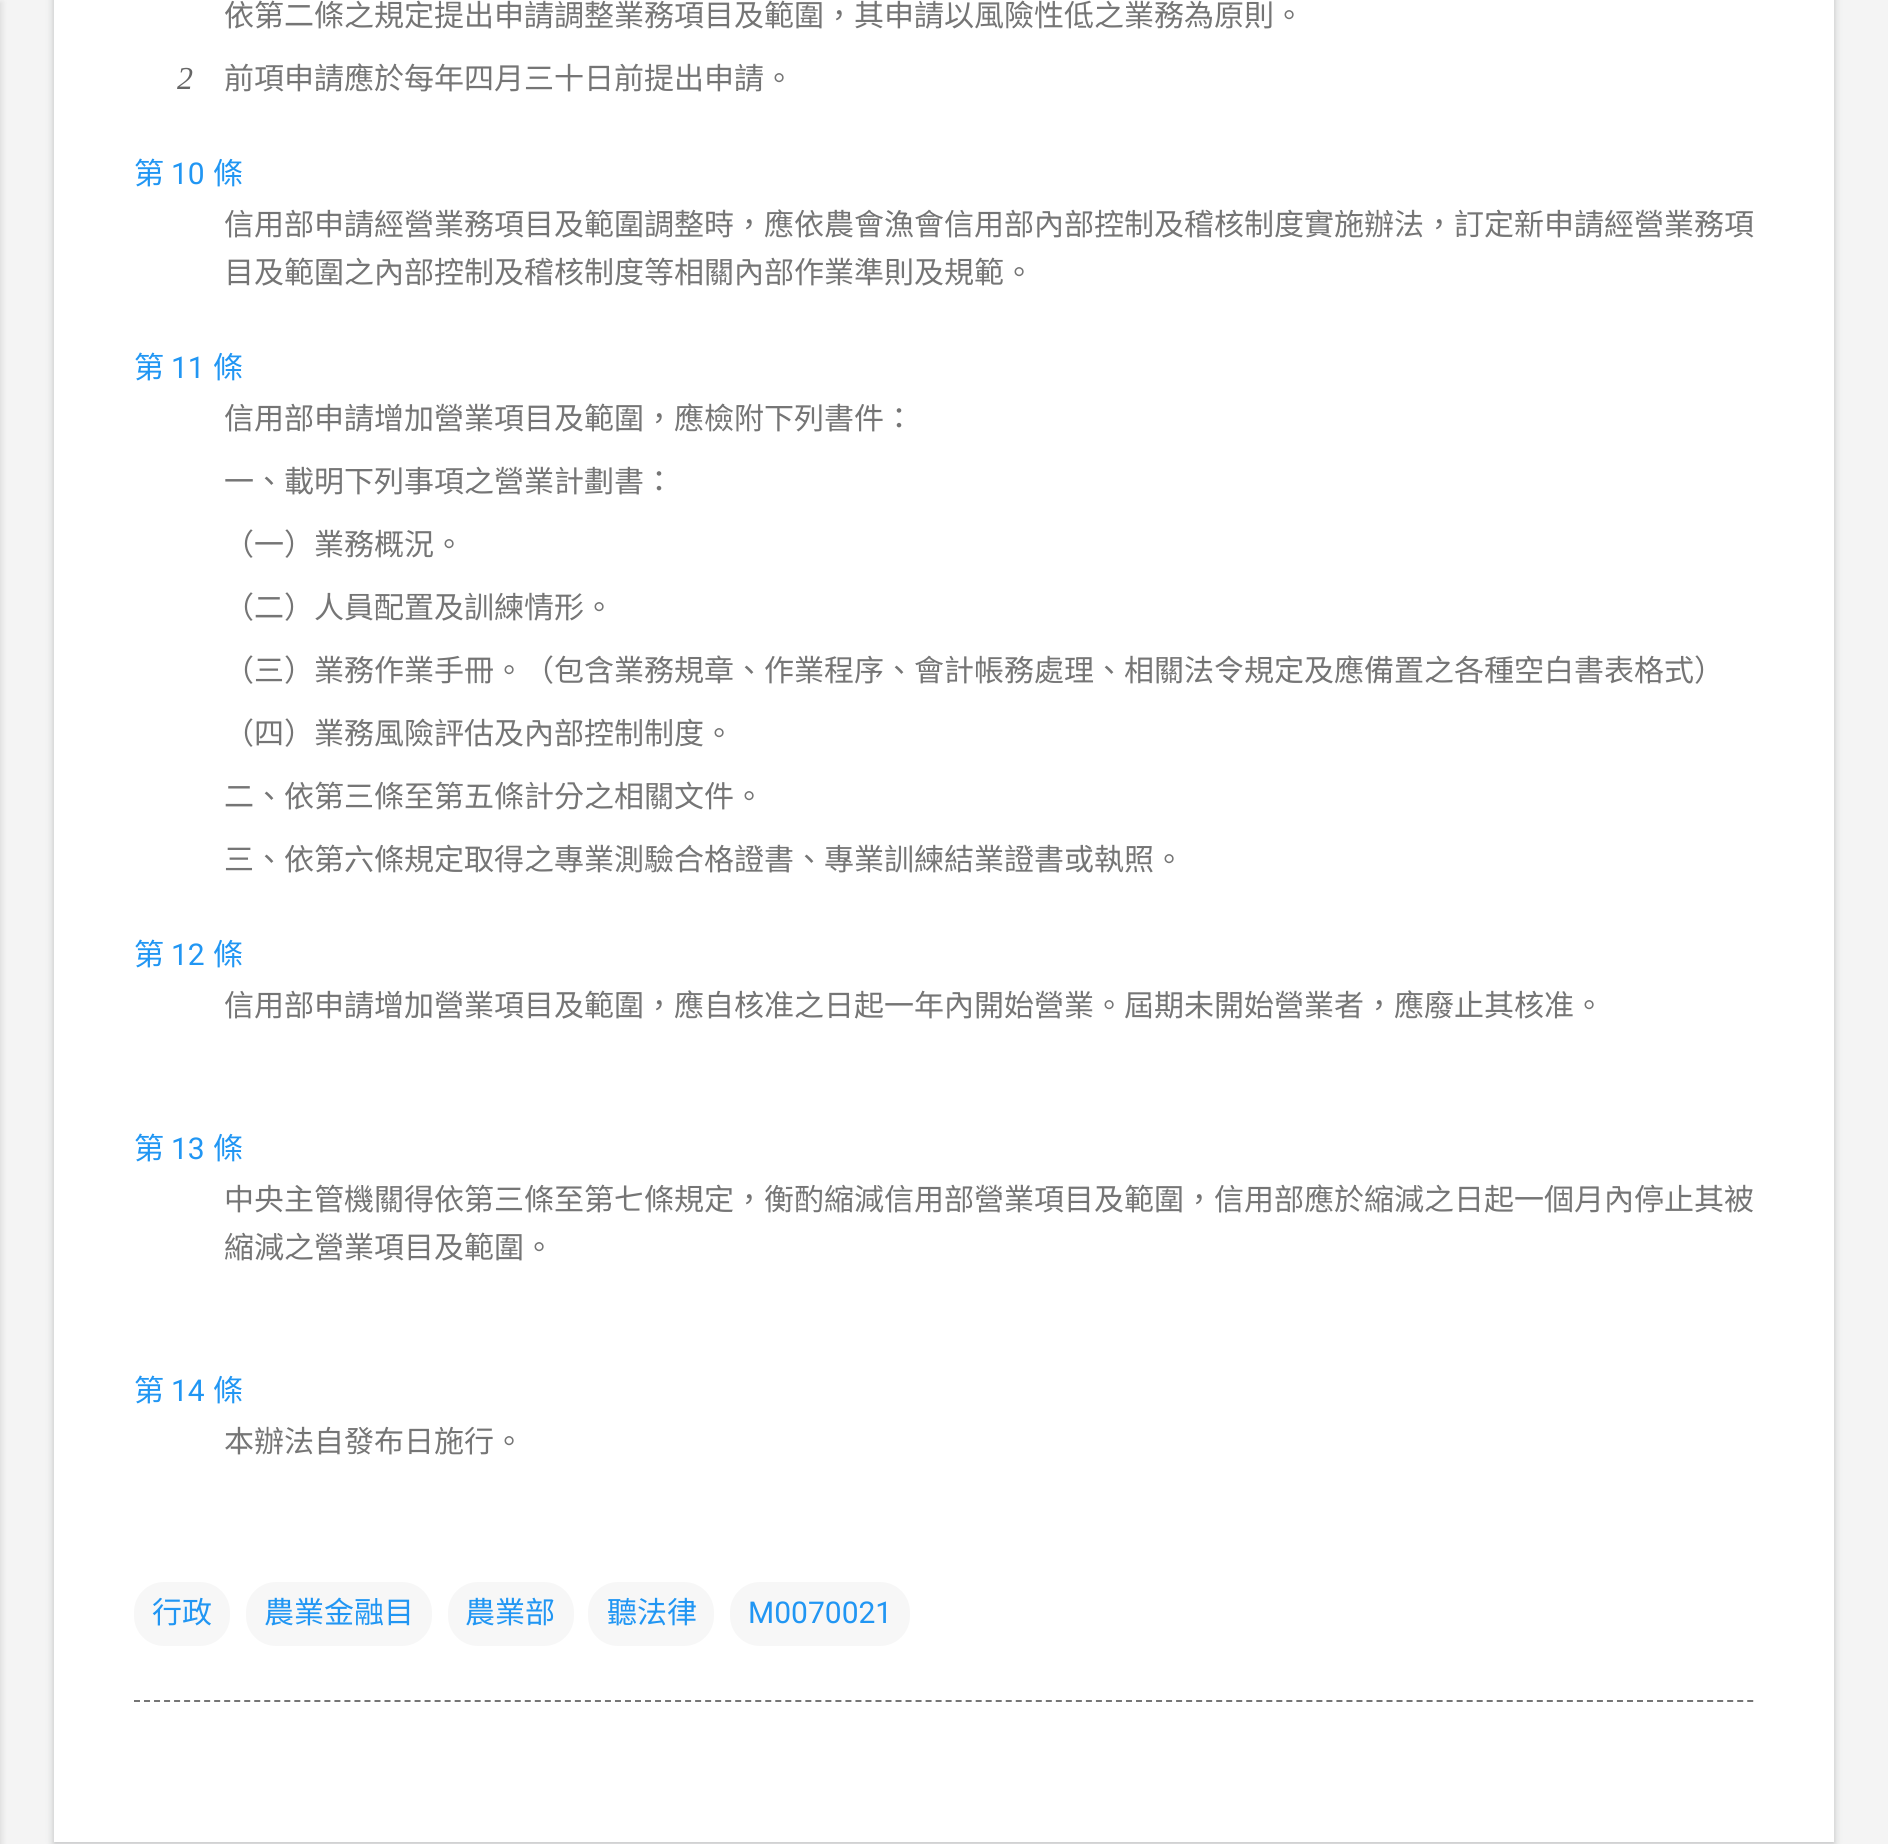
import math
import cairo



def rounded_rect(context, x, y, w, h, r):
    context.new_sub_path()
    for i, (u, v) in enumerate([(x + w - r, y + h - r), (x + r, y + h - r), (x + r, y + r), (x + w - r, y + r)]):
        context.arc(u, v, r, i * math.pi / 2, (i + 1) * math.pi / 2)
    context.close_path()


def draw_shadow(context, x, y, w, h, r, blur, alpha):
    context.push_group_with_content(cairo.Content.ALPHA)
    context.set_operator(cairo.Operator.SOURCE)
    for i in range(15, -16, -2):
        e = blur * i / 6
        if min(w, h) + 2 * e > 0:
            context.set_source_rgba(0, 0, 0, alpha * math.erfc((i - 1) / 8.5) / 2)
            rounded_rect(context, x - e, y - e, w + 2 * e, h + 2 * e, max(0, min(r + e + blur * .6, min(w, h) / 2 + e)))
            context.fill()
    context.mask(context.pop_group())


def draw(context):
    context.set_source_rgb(244 / 255, 244 / 255, 244 / 255)
    context.paint()
    context.set_source_rgb(0, 0, 0)
    draw_shadow(context, -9, 2, 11, 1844, 0, 3, 0.1)
    context.set_source_rgb(60 / 255, 64 / 255, 67 / 255)
    draw_shadow(context, 54, -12, 1780, 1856, 0, 4, 0.3)
    context.set_source_rgb(1, 1, 1)
    context.rectangle(54, 0, 1780, 1842)
    context.fill()
    context.set_source_rgb(247 / 255, 247 / 255, 247 / 255)
    rounded_rect(context, 134, 1582, 96, 64, 30)
    context.fill()
    rounded_rect(context, 246, 1582, 186, 64, 30)
    context.fill()
    rounded_rect(context, 448, 1582, 126, 64, 30)
    context.fill()
    rounded_rect(context, 588, 1582, 126, 64, 30)
    context.fill()
    rounded_rect(context, 730, 1582, 180, 64, 30)
    context.fill()
    context.new_path()
    context.move_to(134, 1701)
    context.line_to(1754, 1701)
    context.set_source_rgb(117 / 255, 117 / 255, 117 / 255)
    context.set_dash([6, 4.02])
    context.stroke()
    context.select_font_face("Noto Sans CJK TC")
    context.set_font_size(30)
    context.move_to(224, 26)
    context.show_text("依第二條之規定提出申請調整業務項目及範圍，其申請以風險性低之業務為原則。")
    context.select_font_face("Liberation Serif", cairo.FontSlant.ITALIC)
    context.set_font_size(32)
    context.set_source_rgb(102 / 255, 102 / 255, 102 / 255)
    context.move_to(177, 89)
    context.show_text("2")
    context.select_font_face("Noto Sans CJK TC")
    context.set_font_size(30)
    context.set_source_rgb(117 / 255, 117 / 255, 117 / 255)
    context.move_to(224, 89)
    context.show_text("前項申請應於每年四月三十日前提出申請。")
    context.set_source_rgb(33 / 255, 150 / 255, 243 / 255)
    context.move_to(134, 184)
    context.show_text("第")
    context.select_font_face("Roboto")
    context.move_to(171, 184)
    context.show_text("10")
    context.select_font_face("Noto Sans CJK TC")
    context.move_to(213, 184)
    context.show_text("條")
    context.set_source_rgb(117 / 255, 117 / 255, 117 / 255)
    context.move_to(224, 235)
    context.show_text("信用部申請經營業務項目及範圍調整時，應依農會漁會信用部內部控制及稽核制度實施辦法，訂定新申請經營業務項")
    context.move_to(224, 283)
    context.show_text("目及範圍之內部控制及稽核制度等相關內部作業準則及規範。")
    context.set_source_rgb(33 / 255, 150 / 255, 243 / 255)
    context.move_to(134, 378)
    context.show_text("第")
    context.select_font_face("Roboto")
    context.move_to(171, 378)
    context.show_text("11")
    context.select_font_face("Noto Sans CJK TC")
    context.move_to(213, 378)
    context.show_text("條")
    context.set_source_rgb(117 / 255, 117 / 255, 117 / 255)
    context.move_to(224, 429)
    context.show_text("信用部申請增加營業項目及範圍，應檢附下列書件：")
    context.move_to(224, 492)
    context.show_text("一、載明下列事項之營業計劃書：")
    context.move_to(224, 555)
    context.show_text("（一）業務概況。")
    context.move_to(224, 618)
    context.show_text("（二）人員配置及訓練情形。")
    context.move_to(224, 681)
    context.show_text("（三）業務作業手冊。（包含業務規章、作業程序、會計帳務處理、相關法令規定及應備置之各種空白書表格式）")
    context.move_to(224, 744)
    context.show_text("（四）業務風險評估及內部控制制度。")
    context.move_to(224, 807)
    context.show_text("二、依第三條至第五條計分之相關文件。")
    context.move_to(224, 870)
    context.show_text("三、依第六條規定取得之專業測驗合格證書、專業訓練結業證書或執照。")
    context.set_source_rgb(33 / 255, 150 / 255, 243 / 255)
    context.move_to(134, 965)
    context.show_text("第")
    context.select_font_face("Roboto")
    context.move_to(171, 965)
    context.show_text("12")
    context.select_font_face("Noto Sans CJK TC")
    context.move_to(213, 965)
    context.show_text("條")
    context.set_source_rgb(117 / 255, 117 / 255, 117 / 255)
    context.move_to(224, 1016)
    context.show_text("信用部申請增加營業項目及範圍，應自核准之日起一年內開始營業。屆期未開始營業者，應廢止其核准。")
    context.set_source_rgb(33 / 255, 150 / 255, 243 / 255)
    context.move_to(134, 1159)
    context.show_text("第")
    context.select_font_face("Roboto")
    context.move_to(171, 1159)
    context.show_text("13")
    context.select_font_face("Noto Sans CJK TC")
    context.move_to(213, 1159)
    context.show_text("條")
    context.set_source_rgb(117 / 255, 117 / 255, 117 / 255)
    context.move_to(224, 1210)
    context.show_text("中央主管機關得依第三條至第七條規定，衡酌縮減信用部營業項目及範圍，信用部應於縮減之日起一個月內停止其被")
    context.move_to(224, 1258)
    context.show_text("縮減之營業項目及範圍。")
    context.set_source_rgb(33 / 255, 150 / 255, 243 / 255)
    context.move_to(134, 1401)
    context.show_text("第")
    context.select_font_face("Roboto")
    context.move_to(171, 1401)
    context.show_text("14")
    context.select_font_face("Noto Sans CJK TC")
    context.move_to(213, 1401)
    context.show_text("條")
    context.set_source_rgb(117 / 255, 117 / 255, 117 / 255)
    context.move_to(224, 1452)
    context.show_text("本辦法自發布日施行。")
    context.set_source_rgb(33 / 255, 150 / 255, 243 / 255)
    context.move_to(152, 1623)
    context.show_text("行政")
    context.move_to(264, 1623)
    context.show_text("農業金融目")
    context.move_to(465, 1623)
    context.show_text("農業部")
    context.move_to(607, 1623)
    context.show_text("聽法律")
    context.select_font_face("Roboto")
    context.move_to(748, 1623)
    context.show_text("M0070021")


surface = cairo.ImageSurface(cairo.Format.RGB24, 1888, 1844)
context = cairo.Context(surface)
options = cairo.FontOptions()
options.set_hint_metrics(cairo.HintMetrics.OFF)
options.set_hint_style(cairo.HintStyle.NONE)
context.set_font_options(options)
context.set_miter_limit(4)
draw(context)
surface.write_to_png("out.png")
